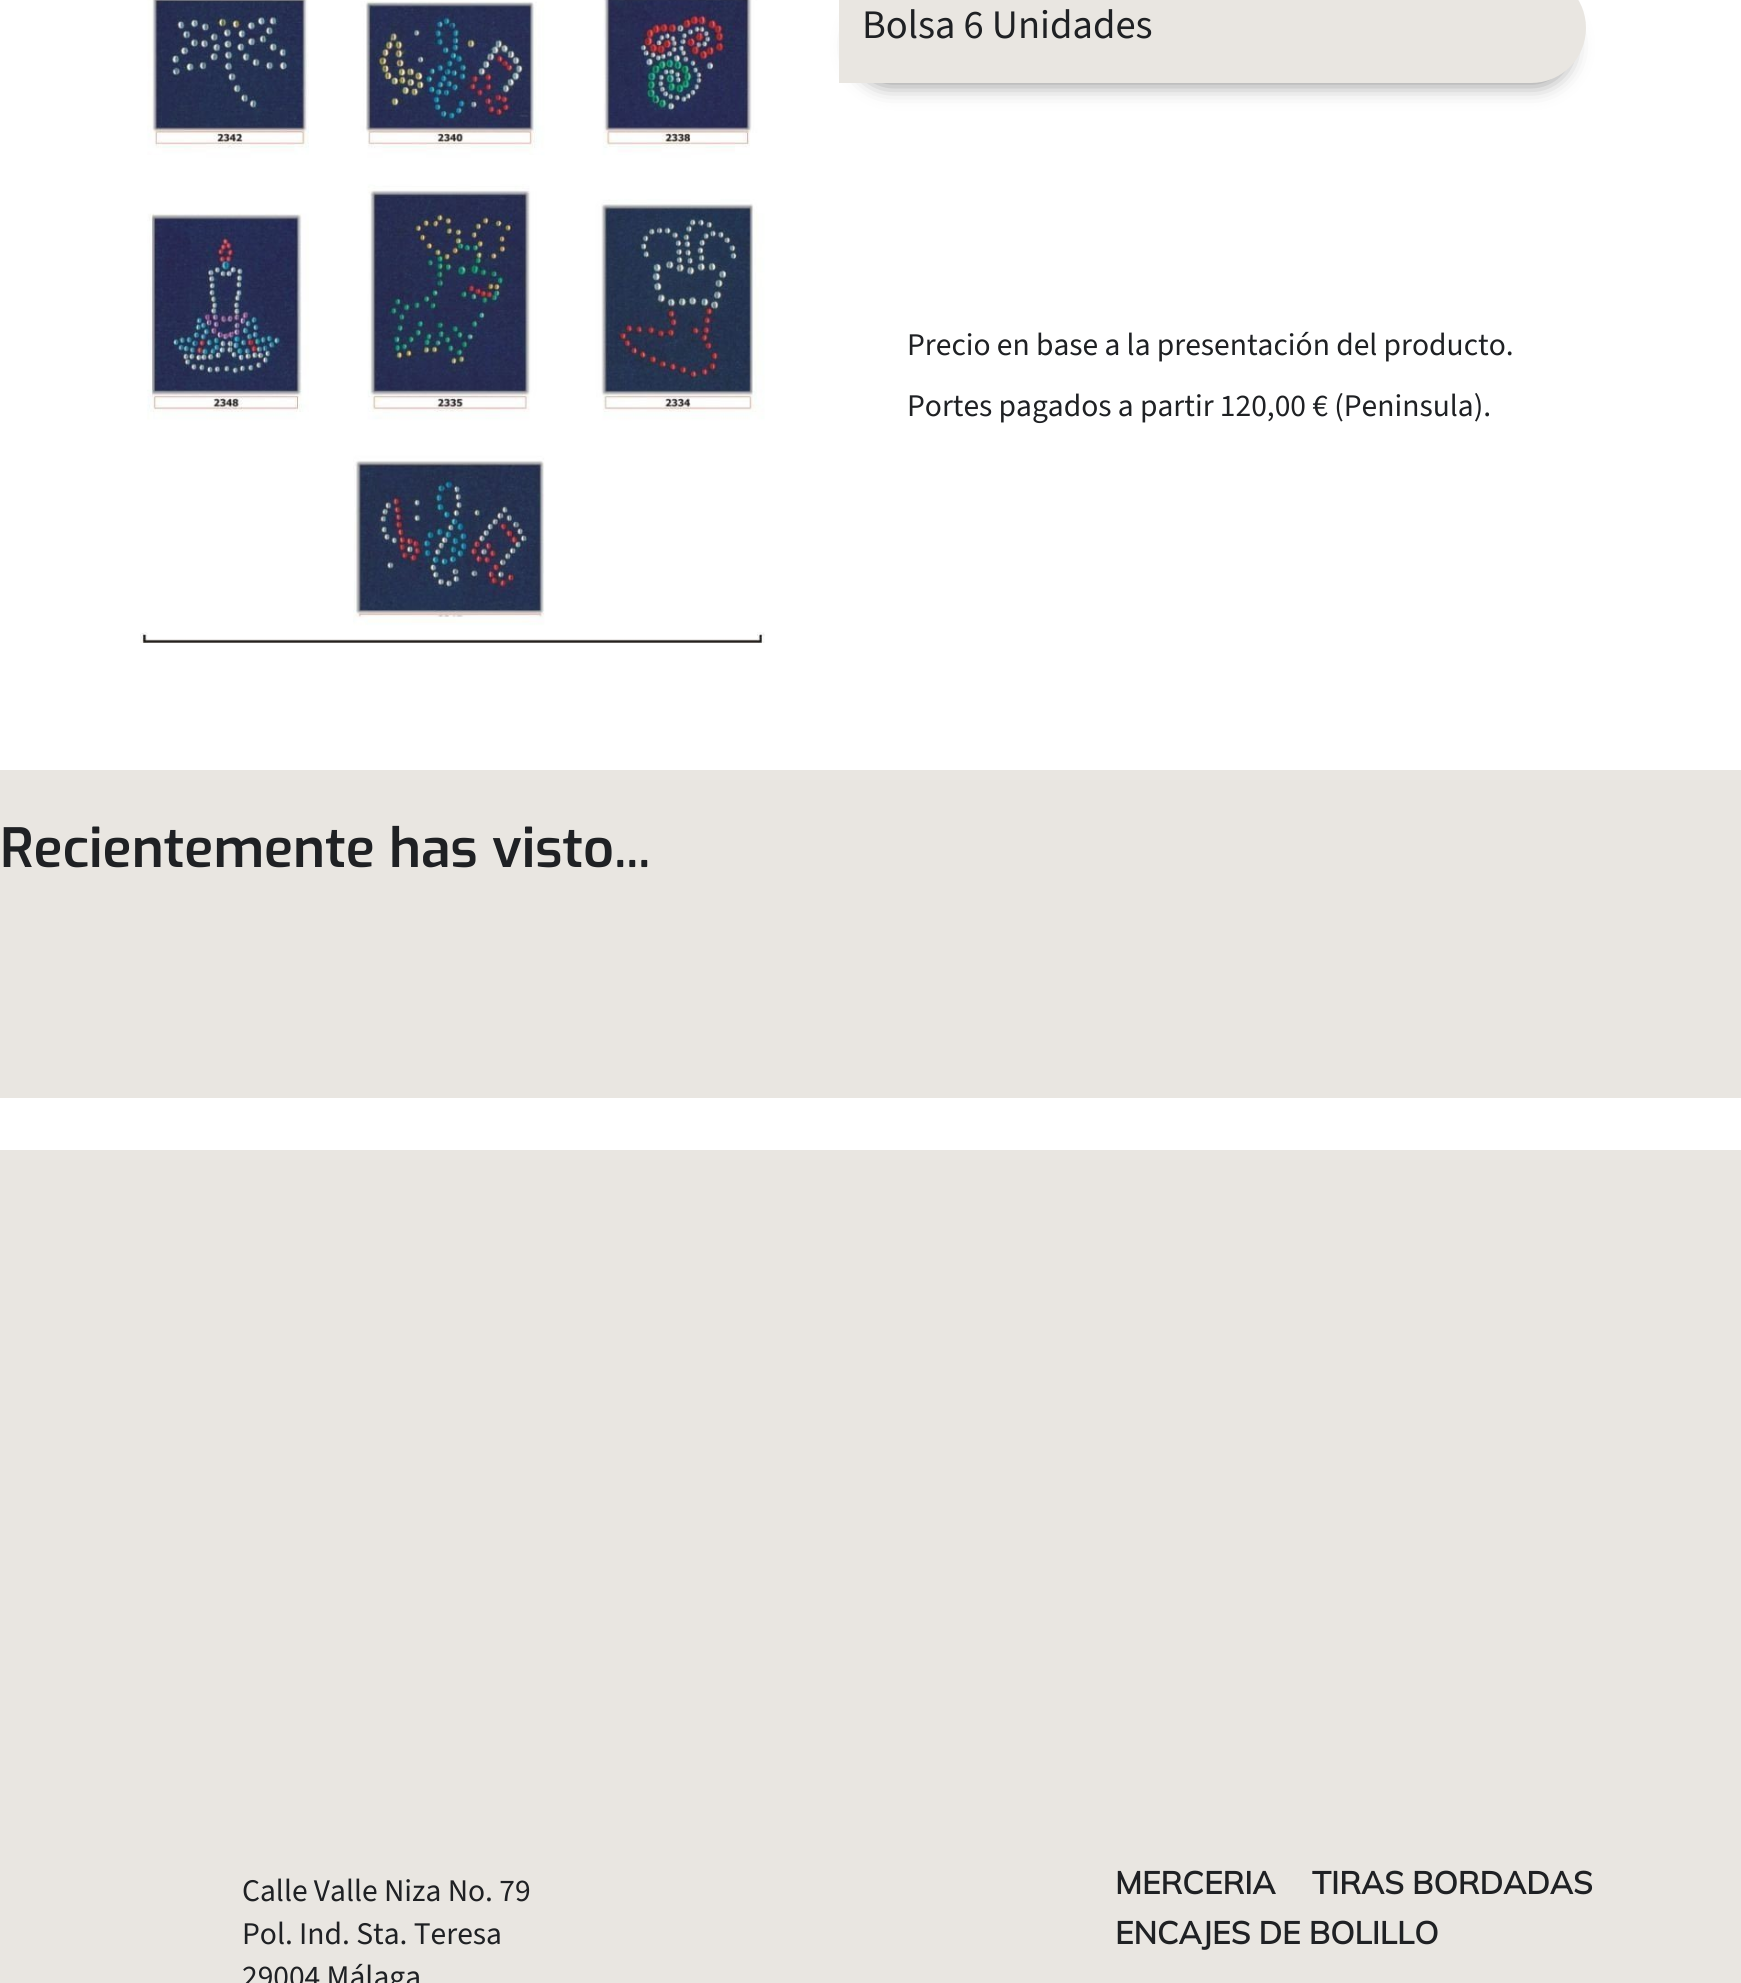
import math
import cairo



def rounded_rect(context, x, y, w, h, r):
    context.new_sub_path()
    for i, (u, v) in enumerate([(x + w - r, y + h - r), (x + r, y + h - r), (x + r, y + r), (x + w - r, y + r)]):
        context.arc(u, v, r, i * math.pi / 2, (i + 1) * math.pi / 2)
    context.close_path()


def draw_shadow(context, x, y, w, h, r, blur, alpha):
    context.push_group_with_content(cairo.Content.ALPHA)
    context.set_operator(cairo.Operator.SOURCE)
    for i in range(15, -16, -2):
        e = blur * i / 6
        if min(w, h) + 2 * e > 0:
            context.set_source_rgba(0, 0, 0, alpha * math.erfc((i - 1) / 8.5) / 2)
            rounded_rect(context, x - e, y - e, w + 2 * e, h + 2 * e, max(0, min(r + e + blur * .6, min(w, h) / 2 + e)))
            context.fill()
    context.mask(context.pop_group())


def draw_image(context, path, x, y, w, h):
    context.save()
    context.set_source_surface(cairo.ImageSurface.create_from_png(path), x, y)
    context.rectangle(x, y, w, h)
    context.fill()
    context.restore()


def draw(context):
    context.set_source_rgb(1, 1, 1)
    context.paint()
    draw_image(context, "images/1.png", 140, 0, 625, 643)
    context.set_source_rgb(0, 0, 0)
    draw_shadow(context, 857, 9, 711, 74, 37, 11, 0.5)
    context.set_source_rgb(233 / 255, 230 / 255, 225 / 255)
    context.new_path()
    context.move_to(839, -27)
    context.line_to(1531, -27)
    context.curve_to(1561.5, -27, 1586, -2.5, 1586, 28)
    context.curve_to(1586, 58.5, 1561.5, 83, 1531, 83)
    context.line_to(839, 83)
    context.close_path()
    context.fill()
    context.rectangle(0, 770, 1741, 328)
    context.fill()
    context.rectangle(0, 1150, 1741, 833)
    context.fill()
    context.select_font_face("Source Sans 3")
    context.set_font_size(40.5)
    context.set_source_rgb(31 / 255, 33 / 255, 36 / 255)
    context.move_to(862, 38)
    context.show_text("Bolsa 6 Unidades")
    context.set_font_size(31.5)
    context.move_to(907, 355)
    context.show_text("Precio en base a la presentación del producto.")
    context.move_to(907, 416)
    context.show_text("Portes pagados a partir 120,00 € (Peninsula).")
    context.select_font_face("Exo SemiBold")
    context.set_font_size(54)
    context.move_to(0, 867)
    context.show_text("Recientemente has visto...")
    context.select_font_face("Source Sans 3")
    context.set_font_size(31.5)
    context.move_to(242, 1901)
    context.show_text("Calle Valle Niza No. 79")
    context.move_to(242, 1944)
    context.show_text("Pol. Ind. Sta. Teresa")
    context.move_to(242, 1987)
    context.show_text("29004 Málaga")
    context.select_font_face("Mulish", cairo.FontSlant.NORMAL, cairo.FontWeight.BOLD)
    context.move_to(1115, 1894)
    context.show_text("MERCERIA")
    context.move_to(1312, 1894)
    context.show_text("TIRAS BORDADAS")
    context.move_to(1115, 1944)
    context.show_text("ENCAJES DE BOLILLO")


surface = cairo.ImageSurface(cairo.Format.RGB24, 1741, 1983)
context = cairo.Context(surface)
options = cairo.FontOptions()
options.set_hint_metrics(cairo.HintMetrics.OFF)
options.set_hint_style(cairo.HintStyle.NONE)
context.set_font_options(options)
context.set_miter_limit(4)
draw(context)
surface.write_to_png("out.png")
